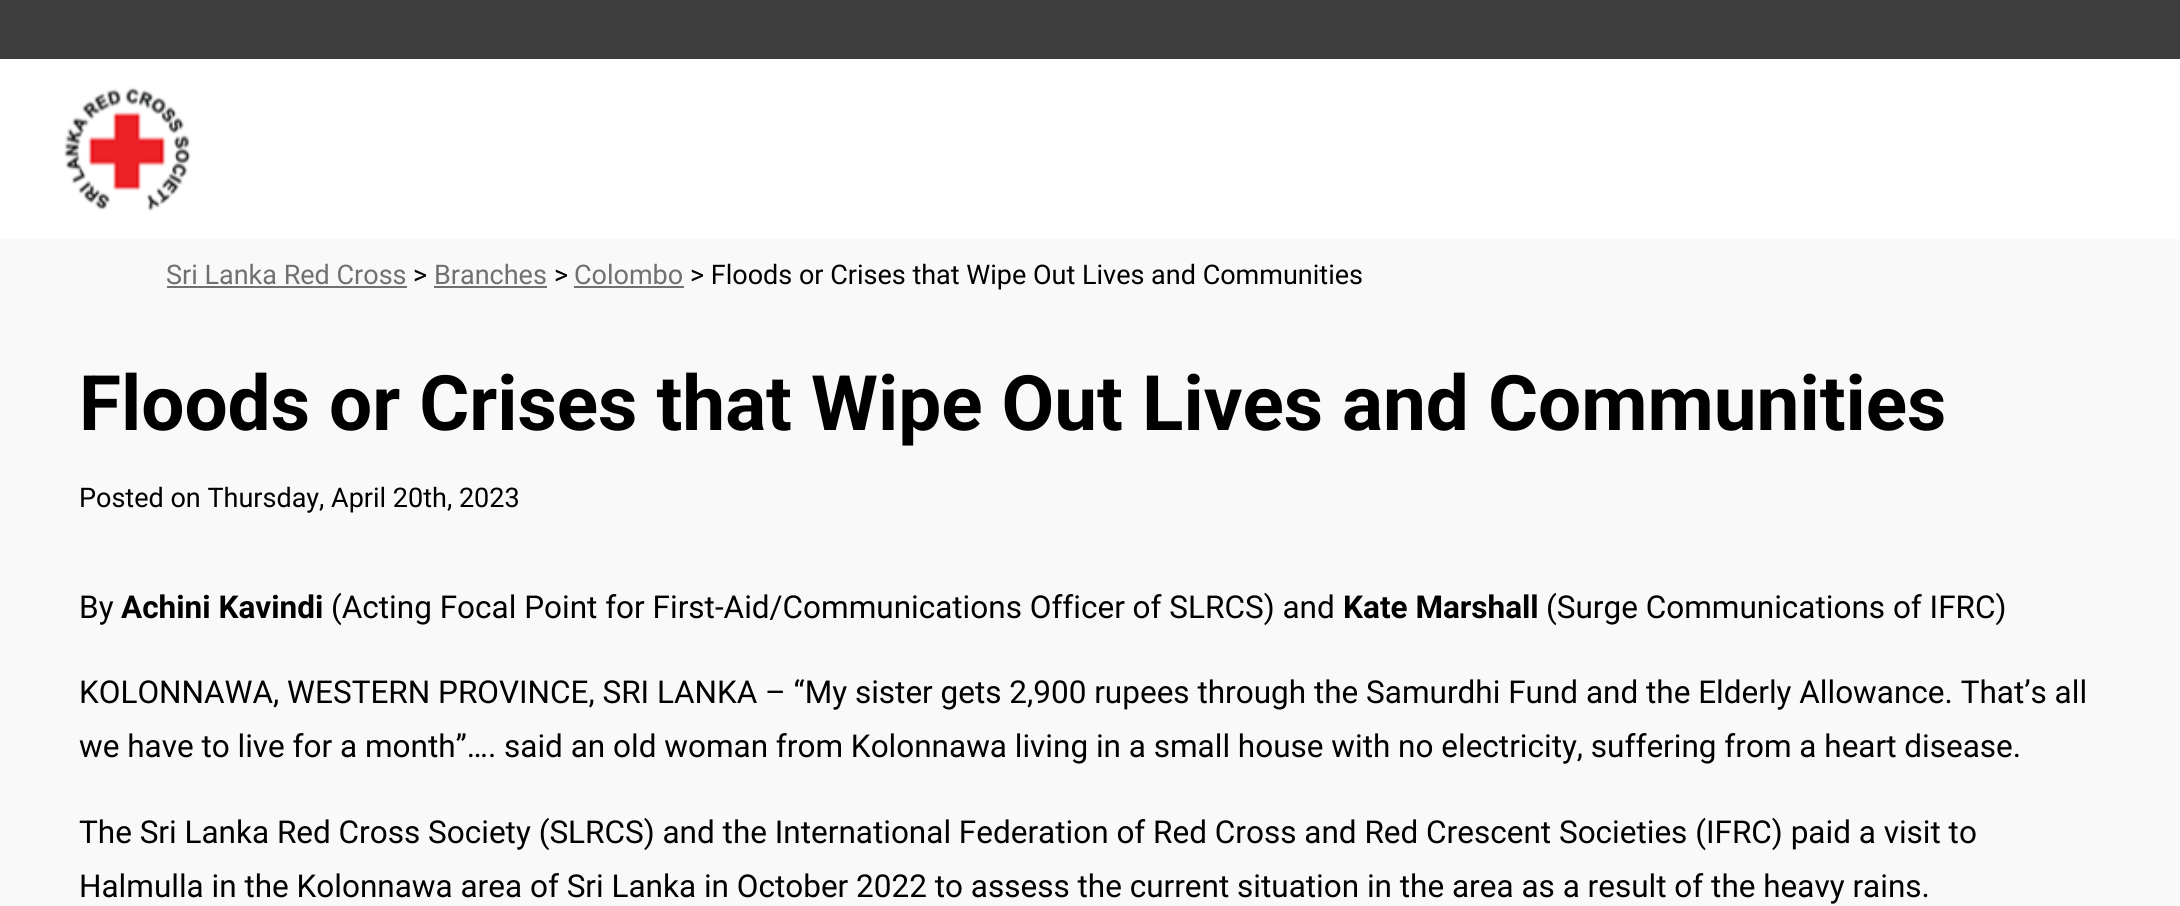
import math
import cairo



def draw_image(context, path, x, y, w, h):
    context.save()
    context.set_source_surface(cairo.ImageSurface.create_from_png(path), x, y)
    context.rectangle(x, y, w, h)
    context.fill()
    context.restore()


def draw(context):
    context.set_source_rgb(249 / 255, 249 / 255, 249 / 255)
    context.paint()
    context.set_source_rgb(1, 1, 1)
    context.rectangle(0, 59, 2180, 180)
    context.fill()
    context.set_source_rgb(61 / 255, 61 / 255, 61 / 255)
    context.rectangle(0, 0, 2180, 59)
    context.fill()
    draw_image(context, "images/1.png", 64, 87, 127, 125)
    context.set_source_rgb(112 / 255, 112 / 255, 112 / 255)
    context.rectangle(167, 286, 240, 2)
    context.fill()
    context.rectangle(434, 286, 113, 2)
    context.fill()
    context.rectangle(574, 286, 110, 2)
    context.fill()
    context.select_font_face("Roboto")
    context.set_font_size(27)
    context.move_to(166, 284)
    context.show_text("Sri Lanka Red Cross")
    context.set_source_rgb(0, 0, 0)
    context.move_to(413, 284)
    context.show_text(">")
    context.set_source_rgb(112 / 255, 112 / 255, 112 / 255)
    context.move_to(434, 284)
    context.show_text("Branches")
    context.set_source_rgb(0, 0, 0)
    context.move_to(554, 284)
    context.show_text(">")
    context.set_source_rgb(112 / 255, 112 / 255, 112 / 255)
    context.move_to(574, 284)
    context.show_text("Colombo")
    context.set_source_rgb(0, 0, 0)
    context.move_to(690, 284)
    context.show_text("> Floods or Crises that Wipe Out Lives and Communities")
    context.select_font_face("Roboto", cairo.FontSlant.NORMAL, cairo.FontWeight.BOLD)
    context.set_font_size(76.5)
    context.move_to(79, 430)
    context.show_text("Floods or Crises that Wipe Out Lives and Communities")
    context.select_font_face("Roboto")
    context.set_font_size(27)
    context.move_to(79, 507)
    context.show_text("Posted on Thursday, April 20th, 2023")
    context.set_font_size(31.5)
    context.move_to(79, 618)
    context.show_text("By")
    context.select_font_face("Roboto", cairo.FontSlant.NORMAL, cairo.FontWeight.BOLD)
    context.move_to(121, 618)
    context.show_text("Achini Kavindi")
    context.select_font_face("Roboto")
    context.move_to(331, 618)
    context.show_text("(Acting Focal Point for First-Aid/Communications Officer of SLRCS) and")
    context.select_font_face("Roboto", cairo.FontSlant.NORMAL, cairo.FontWeight.BOLD)
    context.move_to(1343, 618)
    context.show_text("Kate Marshall")
    context.select_font_face("Roboto")
    context.move_to(1546, 618)
    context.show_text("(Surge Communications of IFRC)")
    context.move_to(79, 703)
    context.show_text("KOLONNAWA, WESTERN PROVINCE, SRI LANKA – “My sister gets 2,900 rupees through the Samurdhi Fund and the Elderly Allowance. That’s all")
    context.move_to(79, 757)
    context.show_text("we have to live for a month”…. said an old woman from Kolonnawa living in a small house with no electricity, suffering from a heart disease.")
    context.move_to(79, 843)
    context.show_text("The Sri Lanka Red Cross Society (SLRCS) and the International Federation of Red Cross and Red Crescent Societies (IFRC) paid a visit to")
    context.move_to(79, 897)
    context.show_text("Halmulla in the Kolonnawa area of Sri Lanka in October 2022 to assess the current situation in the area as a result of the heavy rains.")


surface = cairo.ImageSurface(cairo.Format.RGB24, 2180, 906)
context = cairo.Context(surface)
options = cairo.FontOptions()
options.set_hint_metrics(cairo.HintMetrics.OFF)
options.set_hint_style(cairo.HintStyle.NONE)
context.set_font_options(options)
context.set_miter_limit(4)
draw(context)
surface.write_to_png("out.png")
